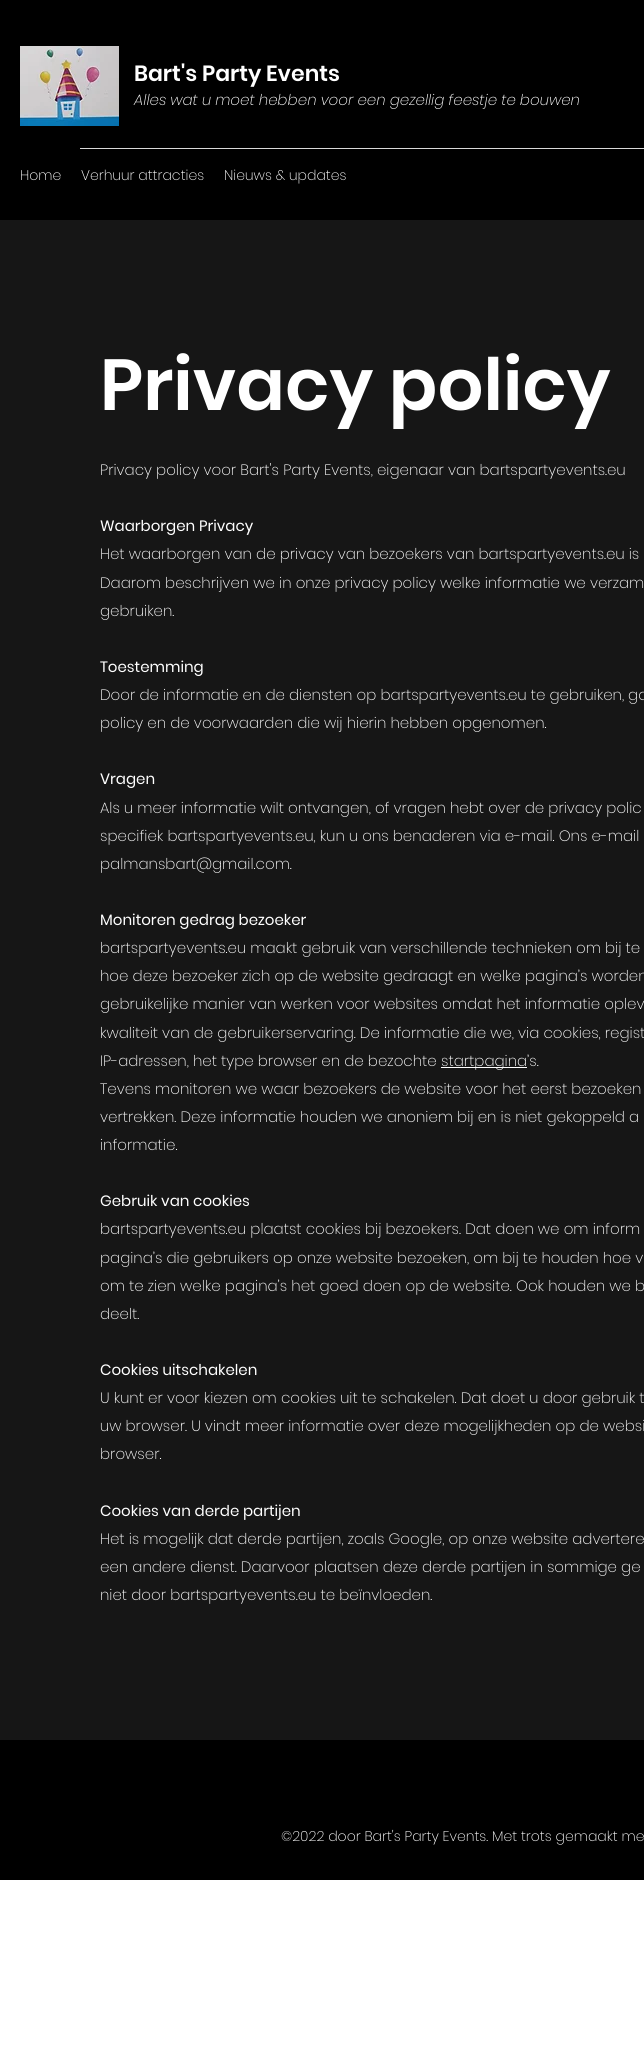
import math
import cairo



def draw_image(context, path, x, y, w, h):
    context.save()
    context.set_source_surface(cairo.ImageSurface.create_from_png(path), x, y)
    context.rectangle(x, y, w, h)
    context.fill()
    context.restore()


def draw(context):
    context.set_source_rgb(1, 1, 1)
    context.paint()
    context.set_source_rgb(0, 0, 0)
    context.rectangle(0, 0, 644, 220)
    context.fill()
    draw_image(context, "images/1.png", 20, 46, 99, 80)
    context.set_source_rgb(217 / 255, 217 / 255, 217 / 255)
    context.rectangle(80, 148, 564, 1)
    context.fill()
    context.set_source_rgb(22 / 255, 22 / 255, 22 / 255)
    context.rectangle(0, 220, 644, 1520)
    context.fill()
    context.set_source_rgb(1, 1, 1)
    context.rectangle(441, 1067, 86, 1)
    context.fill()
    context.set_source_rgb(0, 0, 0)
    context.rectangle(0, 1740, 644, 140)
    context.fill()
    context.select_font_face("Poppins SemiBold")
    context.set_font_size(22)
    context.set_source_rgb(1, 1, 1)
    context.move_to(134, 81)
    context.show_text("Bart's Party Events")
    context.select_font_face("Poppins ExtraLight", cairo.FontSlant.ITALIC)
    context.set_font_size(15)
    context.move_to(134, 105)
    context.show_text("Alles wat u moet hebben voor een gezellig feestje te bouwen")
    context.select_font_face("Poppins ExtraLight")
    context.set_font_size(14)
    context.move_to(20, 180)
    context.show_text("Home")
    context.move_to(81, 180)
    context.show_text("Verhuur attracties")
    context.move_to(224, 180)
    context.show_text("Nieuws & updates")
    context.select_font_face("Poppins SemiBold")
    context.set_font_size(72)
    context.move_to(100, 410)
    context.show_text("Privacy policy")
    context.select_font_face("Poppins ExtraLight")
    context.set_font_size(15)
    context.move_to(100, 475)
    context.show_text("Privacy policy voor Bart's Party Events, eigenaar van bartspartyevents.eu")
    context.select_font_face("Poppins")
    context.move_to(100, 531)
    context.show_text("Waarborgen Privacy")
    context.select_font_face("Poppins ExtraLight")
    context.move_to(100, 559)
    context.show_text("Het waarborgen van de privacy van bezoekers van bartspartyevents.eu is")
    context.move_to(100, 588)
    context.show_text("Daarom beschrijven we in onze privacy policy welke informatie we verzam")
    context.move_to(100, 616)
    context.show_text("gebruiken.")
    context.select_font_face("Poppins")
    context.move_to(100, 672)
    context.show_text("Toestemming")
    context.select_font_face("Poppins ExtraLight")
    context.move_to(100, 700)
    context.show_text("Door de informatie en de diensten op bartspartyevents.eu te gebruiken, ga")
    context.move_to(100, 728)
    context.show_text("policy en de voorwaarden die wij hierin hebben opgenomen.")
    context.select_font_face("Poppins")
    context.move_to(100, 784)
    context.show_text("Vragen")
    context.select_font_face("Poppins ExtraLight")
    context.move_to(100, 813)
    context.show_text("Als u meer informatie wilt ontvangen, of vragen hebt over de privacy polic")
    context.move_to(100, 841)
    context.show_text("specifiek bartspartyevents.eu, kun u ons benaderen via e-mail. Ons e-mail")
    context.move_to(100, 869)
    context.show_text("palmansbart@gmail.com.")
    context.select_font_face("Poppins")
    context.move_to(100, 925)
    context.show_text("Monitoren gedrag bezoeker")
    context.select_font_face("Poppins ExtraLight")
    context.move_to(100, 953)
    context.show_text("bartspartyevents.eu maakt gebruik van verschillende technieken om bij te")
    context.move_to(100, 981)
    context.show_text("hoe deze bezoeker zich op de website gedraagt en welke pagina’s worden")
    context.move_to(100, 1009)
    context.show_text("gebruikelijke manier van werken voor websites omdat het informatie oplev")
    context.move_to(100, 1038)
    context.show_text("kwaliteit van de gebruikerservaring. De informatie die we, via cookies, regist")
    context.move_to(100, 1066)
    context.show_text("IP-adressen, het type browser en de bezochte")
    context.move_to(441, 1066)
    context.show_text("startpagina’s.")
    context.move_to(100, 1094)
    context.show_text("Tevens monitoren we waar bezoekers de website voor het eerst bezoeken")
    context.move_to(100, 1122)
    context.show_text("vertrekken. Deze informatie houden we anoniem bij en is niet gekoppeld a")
    context.move_to(100, 1150)
    context.show_text("informatie.")
    context.select_font_face("Poppins")
    context.move_to(100, 1206)
    context.show_text("Gebruik van cookies")
    context.select_font_face("Poppins ExtraLight")
    context.move_to(100, 1234)
    context.show_text("bartspartyevents.eu plaatst cookies bij bezoekers. Dat doen we om inform")
    context.move_to(100, 1263)
    context.show_text("pagina’s die gebruikers op onze website bezoeken, om bij te houden hoe v")
    context.move_to(100, 1291)
    context.show_text("om te zien welke pagina’s het goed doen op de website. Ook houden we b")
    context.move_to(100, 1319)
    context.show_text("deelt.")
    context.select_font_face("Poppins")
    context.move_to(100, 1375)
    context.show_text("Cookies uitschakelen")
    context.select_font_face("Poppins ExtraLight")
    context.move_to(100, 1403)
    context.show_text("U kunt er voor kiezen om cookies uit te schakelen. Dat doet u door gebruik t")
    context.move_to(100, 1431)
    context.show_text("uw browser. U vindt meer informatie over deze mogelijkheden op de websi")
    context.move_to(100, 1459)
    context.show_text("browser.")
    context.select_font_face("Poppins")
    context.move_to(100, 1516)
    context.show_text("Cookies van derde partijen")
    context.select_font_face("Poppins ExtraLight")
    context.move_to(100, 1544)
    context.show_text("Het is mogelijk dat derde partijen, zoals Google, op onze website advertere")
    context.move_to(100, 1572)
    context.show_text("een andere dienst. Daarvoor plaatsen deze derde partijen in sommige ge")
    context.move_to(100, 1600)
    context.show_text("niet door bartspartyevents.eu te beïnvloeden.")
    context.set_font_size(14)
    context.move_to(281, 1841)
    context.show_text("©2022 door Bart's Party Events. Met trots gemaakt me")


surface = cairo.ImageSurface(cairo.Format.RGB24, 644, 2054)
context = cairo.Context(surface)
options = cairo.FontOptions()
options.set_hint_metrics(cairo.HintMetrics.OFF)
options.set_hint_style(cairo.HintStyle.NONE)
context.set_font_options(options)
context.set_miter_limit(4)
draw(context)
surface.write_to_png("out.png")
